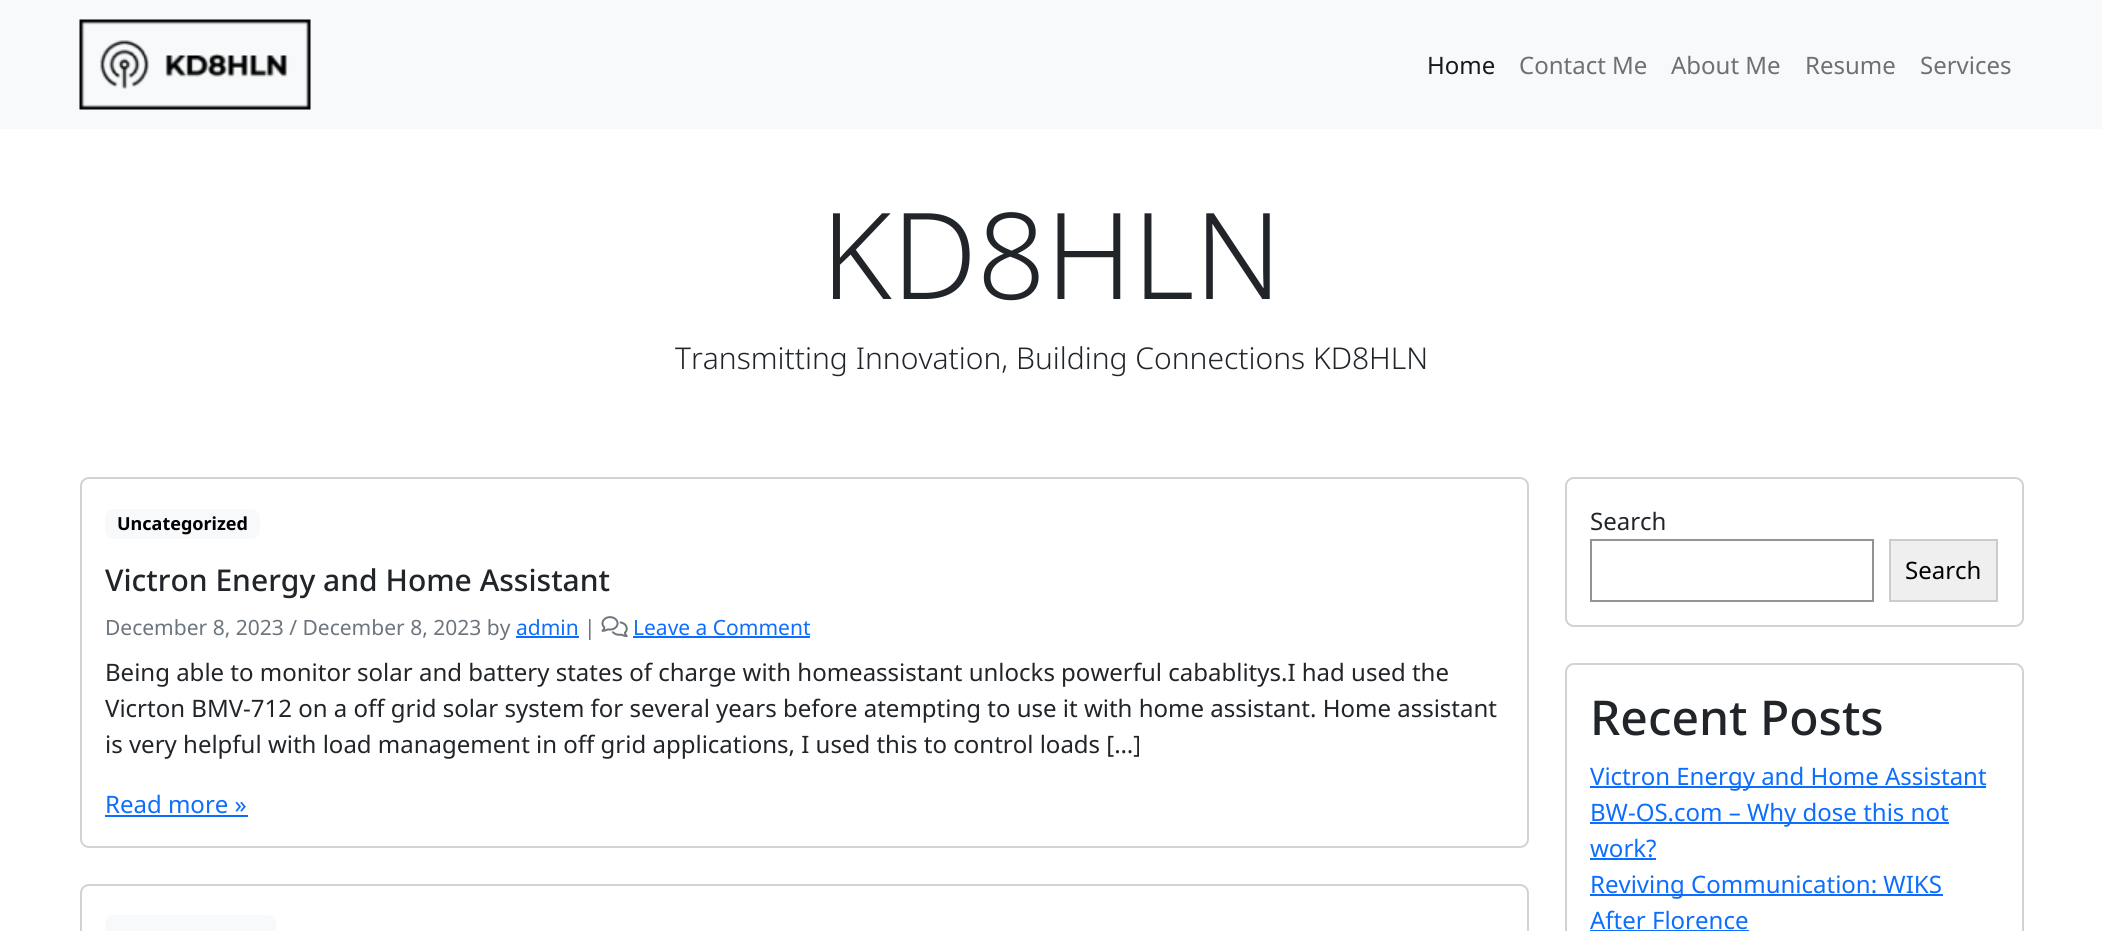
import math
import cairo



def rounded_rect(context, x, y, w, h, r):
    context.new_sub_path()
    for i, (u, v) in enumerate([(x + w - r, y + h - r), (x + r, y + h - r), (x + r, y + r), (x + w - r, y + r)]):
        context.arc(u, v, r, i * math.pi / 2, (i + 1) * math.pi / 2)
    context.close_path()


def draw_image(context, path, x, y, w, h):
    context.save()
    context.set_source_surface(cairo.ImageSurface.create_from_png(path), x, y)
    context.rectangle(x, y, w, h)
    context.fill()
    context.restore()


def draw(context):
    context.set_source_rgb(1, 1, 1)
    context.paint()
    context.set_source_rgb(248 / 255, 249 / 255, 250 / 255)
    context.rectangle(0, 0, 2102, 129)
    context.fill()
    draw_image(context, "images/1.png", 79, 19, 232, 91)
    rounded_rect(context, 81, 478, 1447, 369, 8)
    context.set_source_rgb(210 / 255, 210 / 255, 210 / 255)
    context.stroke()
    context.set_source_rgb(248 / 255, 249 / 255, 250 / 255)
    rounded_rect(context, 105, 509, 155, 30, 9)
    context.fill()
    context.set_source_rgb(13 / 255, 110 / 255, 253 / 255)
    context.rectangle(516, 636, 63, 2)
    context.fill()
    draw_image(context, "images/2.png", 601, 616, 27, 22)
    context.rectangle(633, 636, 177, 2)
    context.fill()
    context.rectangle(105, 815, 143, 2)
    context.fill()
    rounded_rect(context, 81, 885, 1447, 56, 8)
    context.set_source_rgb(210 / 255, 210 / 255, 210 / 255)
    context.stroke()
    context.set_source_rgb(248 / 255, 249 / 255, 250 / 255)
    rounded_rect(context, 105, 915, 171, 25, 9)
    context.fill()
    rounded_rect(context, 1566, 478, 457, 148, 8)
    context.set_source_rgb(210 / 255, 210 / 255, 210 / 255)
    context.stroke()
    context.rectangle(1591, 540, 282, 61)
    context.set_source_rgb(148 / 255, 148 / 255, 148 / 255)
    context.stroke()
    context.set_source_rgb(239 / 255, 239 / 255, 239 / 255)
    context.rectangle(1890, 540, 107, 61)
    context.fill_preserve()
    context.set_source_rgb(204 / 255, 204 / 255, 204 / 255)
    context.stroke()
    rounded_rect(context, 1566, 664, 457, 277, 8)
    context.set_source_rgb(210 / 255, 210 / 255, 210 / 255)
    context.stroke()
    context.set_source_rgb(13 / 255, 110 / 255, 253 / 255)
    context.rectangle(1590, 786, 396, 2)
    context.fill()
    context.rectangle(1590, 822, 359, 2)
    context.fill()
    context.rectangle(1590, 858, 66, 2)
    context.fill()
    context.rectangle(1590, 894, 353, 2)
    context.fill()
    context.rectangle(1590, 930, 159, 1)
    context.fill()
    context.select_font_face("Noto Sans")
    context.set_font_size(24)
    context.set_source_rgb(25 / 255, 25 / 255, 25 / 255)
    context.move_to(1427, 74)
    context.show_text("Home")
    context.set_source_rgb(112 / 255, 112 / 255, 113 / 255)
    context.move_to(1519, 74)
    context.show_text("Contact Me")
    context.move_to(1671, 74)
    context.show_text("About Me")
    context.move_to(1805, 74)
    context.show_text("Resume")
    context.move_to(1920, 74)
    context.show_text("Services")
    context.select_font_face("Noto Sans Light")
    context.set_font_size(120)
    context.set_source_rgb(33 / 255, 37 / 255, 41 / 255)
    context.move_to(821, 299)
    context.show_text("KD8HLN")
    context.set_font_size(30)
    context.move_to(675, 369)
    context.show_text("Transmitting Innovation, Building Connections KD8HLN")
    context.select_font_face("Noto Sans", cairo.FontSlant.NORMAL, cairo.FontWeight.BOLD)
    context.set_font_size(18)
    context.set_source_rgb(0, 0, 0)
    context.move_to(117, 530)
    context.show_text("Uncategorized")
    context.select_font_face("Noto Sans Medium")
    context.set_font_size(30)
    context.set_source_rgb(33 / 255, 37 / 255, 41 / 255)
    context.move_to(105, 591)
    context.show_text("Victron Energy and Home Assistant")
    context.select_font_face("Noto Sans")
    context.set_font_size(21)
    context.set_source_rgb(108 / 255, 117 / 255, 125 / 255)
    context.move_to(105, 635)
    context.show_text("December 8, 2023 / December 8, 2023 by")
    context.set_source_rgb(13 / 255, 110 / 255, 253 / 255)
    context.move_to(516, 635)
    context.show_text("admin")
    context.set_source_rgb(108 / 255, 117 / 255, 125 / 255)
    context.move_to(584, 635)
    context.show_text("|")
    context.set_source_rgb(13 / 255, 110 / 255, 253 / 255)
    context.move_to(633, 635)
    context.show_text("Leave a Comment")
    context.set_font_size(24)
    context.set_source_rgb(33 / 255, 37 / 255, 41 / 255)
    context.move_to(105, 681)
    context.show_text("Being able to monitor solar and battery states of charge with homeassistant unlocks powerful cabablitys.I had used the")
    context.move_to(105, 717)
    context.show_text("Vicrton BMV-712 on a off grid solar system for several years before atempting to use it with home assistant. Home assistant")
    context.move_to(105, 753)
    context.show_text("is very helpful with load management in off grid applications, I used this to control loads […]")
    context.set_source_rgb(13 / 255, 110 / 255, 253 / 255)
    context.move_to(105, 813)
    context.show_text("Read more »")
    context.set_source_rgb(33 / 255, 37 / 255, 41 / 255)
    context.move_to(1590, 530)
    context.show_text("Search")
    context.set_source_rgb(0, 0, 0)
    context.move_to(1905, 579)
    context.show_text("Search")
    context.select_font_face("Noto Sans Medium")
    context.set_font_size(48)
    context.set_source_rgb(33 / 255, 37 / 255, 41 / 255)
    context.move_to(1590, 735)
    context.show_text("Recent Posts")
    context.select_font_face("Noto Sans")
    context.set_font_size(24)
    context.set_source_rgb(13 / 255, 110 / 255, 253 / 255)
    context.move_to(1590, 785)
    context.show_text("Victron Energy and Home Assistant")
    context.move_to(1590, 821)
    context.show_text("BW-OS.com – Why dose this not")
    context.move_to(1590, 857)
    context.show_text("work?")
    context.move_to(1590, 893)
    context.show_text("Reviving Communication: WIKS")
    context.move_to(1590, 929)
    context.show_text("After Florence")


surface = cairo.ImageSurface(cairo.Format.RGB24, 2102, 931)
context = cairo.Context(surface)
options = cairo.FontOptions()
options.set_hint_metrics(cairo.HintMetrics.OFF)
options.set_hint_style(cairo.HintStyle.NONE)
context.set_font_options(options)
context.set_miter_limit(4)
draw(context)
surface.write_to_png("out.png")
